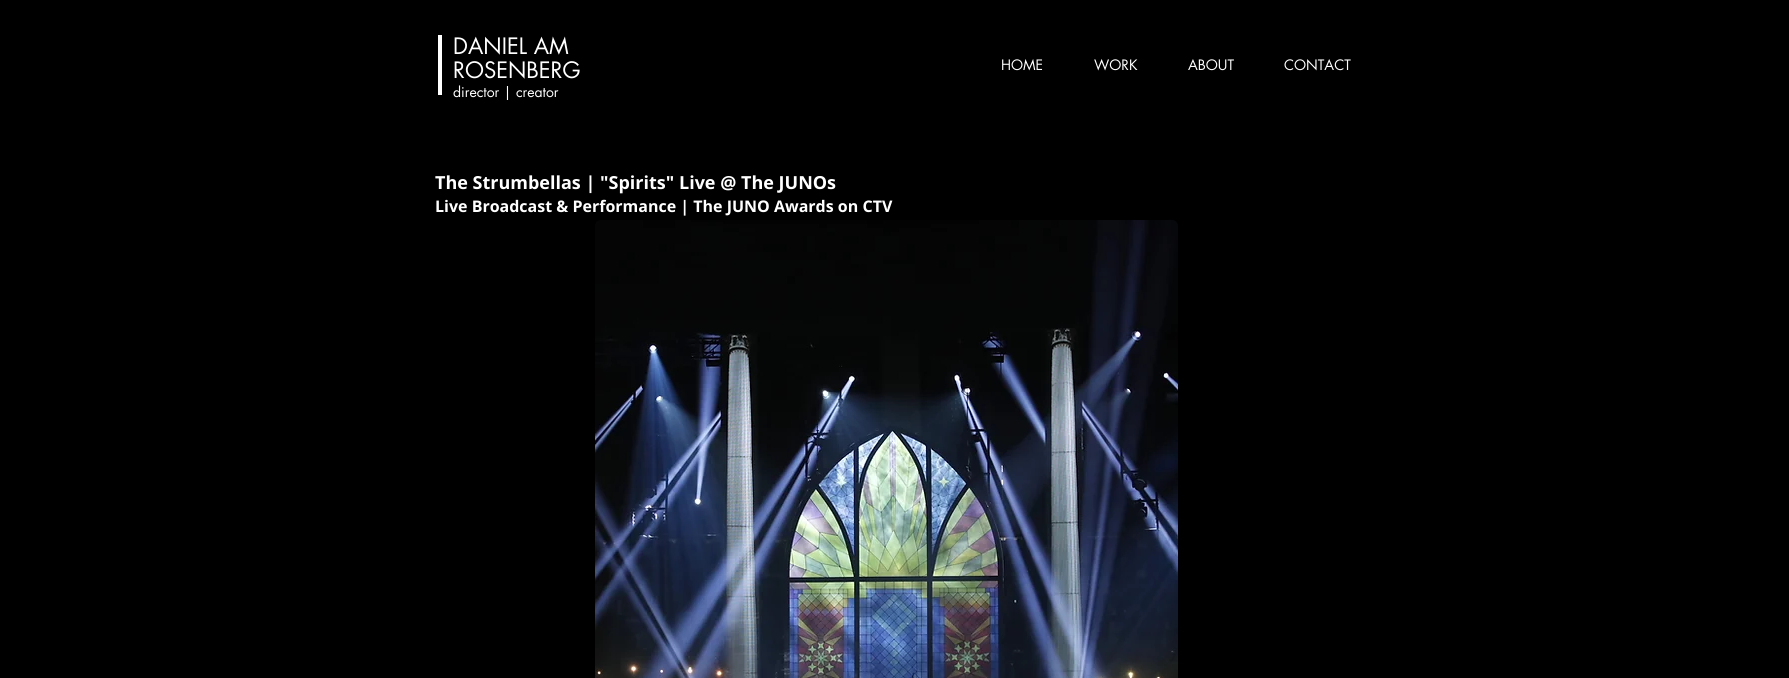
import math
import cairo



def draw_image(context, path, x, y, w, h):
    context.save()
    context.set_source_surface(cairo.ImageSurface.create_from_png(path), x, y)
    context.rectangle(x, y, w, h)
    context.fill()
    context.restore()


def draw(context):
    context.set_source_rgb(0, 0, 0)
    context.paint()
    context.set_source_rgb(1, 1, 1)
    context.rectangle(438, 35, 4, 60)
    context.fill()
    draw_image(context, "images/1.png", 595, 220, 583, 458)
    context.select_font_face("futura")
    context.set_font_size(22)
    context.move_to(453, 54)
    context.show_text("DANIEL AM")
    context.move_to(453, 78)
    context.show_text("ROSENBERG")
    context.set_font_size(14)
    context.move_to(453, 97)
    context.show_text("director | creator")
    context.move_to(1001, 70)
    context.show_text("HOME")
    context.move_to(1094, 70)
    context.show_text("WORK")
    context.move_to(1188, 70)
    context.show_text("ABOUT")
    context.move_to(1284, 70)
    context.show_text("CONTACT")
    context.select_font_face("Open Sans", cairo.FontSlant.NORMAL, cairo.FontWeight.BOLD)
    context.set_font_size(18)
    context.move_to(435, 189)
    context.show_text("The Strumbellas | \"Spirits\" Live @ The JUNOs")
    context.set_font_size(16)
    context.move_to(435, 212)
    context.show_text("Live Broadcast & Performance | The JUNO Awards on CTV")


surface = cairo.ImageSurface(cairo.Format.RGB24, 1789, 678)
context = cairo.Context(surface)
options = cairo.FontOptions()
options.set_hint_metrics(cairo.HintMetrics.OFF)
options.set_hint_style(cairo.HintStyle.NONE)
context.set_font_options(options)
context.set_miter_limit(4)
draw(context)
surface.write_to_png("out.png")
